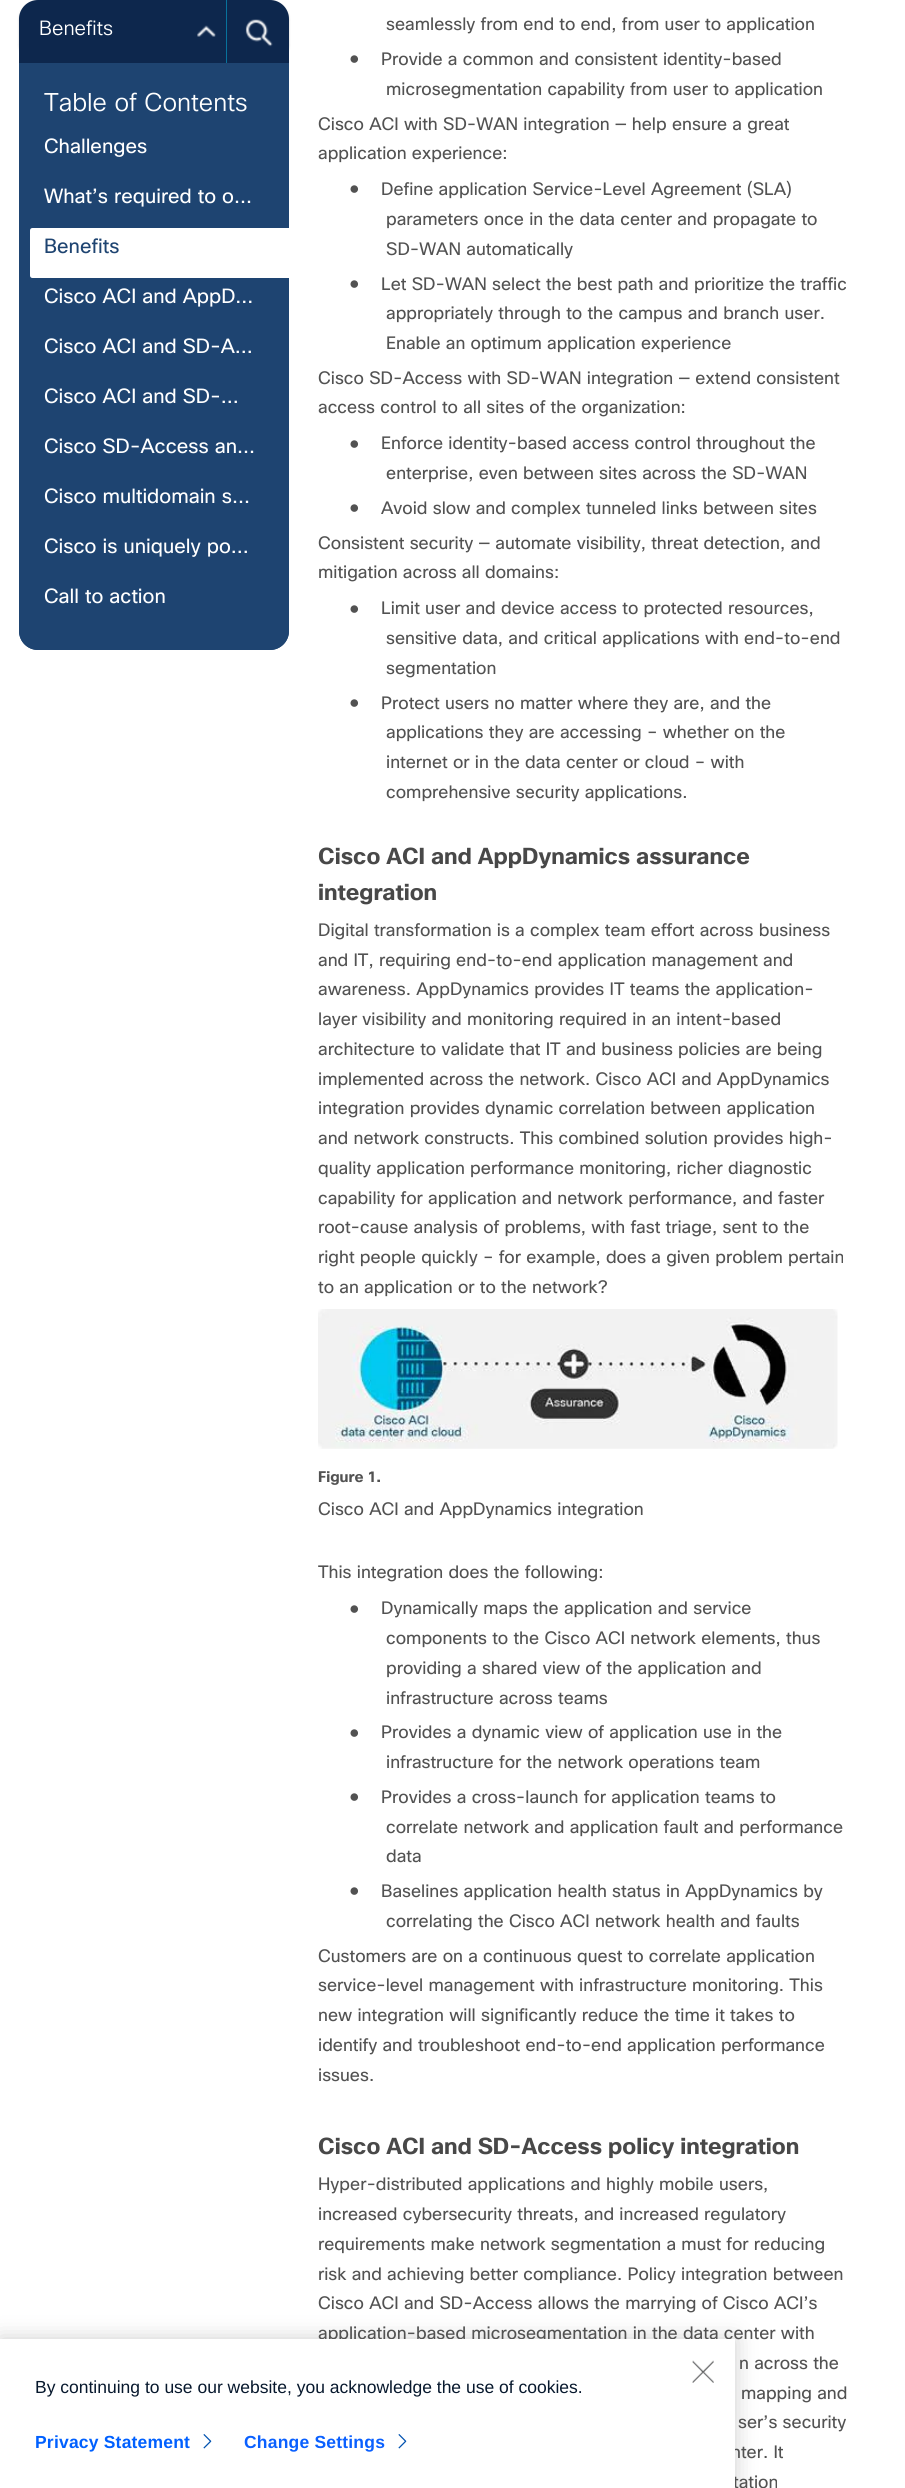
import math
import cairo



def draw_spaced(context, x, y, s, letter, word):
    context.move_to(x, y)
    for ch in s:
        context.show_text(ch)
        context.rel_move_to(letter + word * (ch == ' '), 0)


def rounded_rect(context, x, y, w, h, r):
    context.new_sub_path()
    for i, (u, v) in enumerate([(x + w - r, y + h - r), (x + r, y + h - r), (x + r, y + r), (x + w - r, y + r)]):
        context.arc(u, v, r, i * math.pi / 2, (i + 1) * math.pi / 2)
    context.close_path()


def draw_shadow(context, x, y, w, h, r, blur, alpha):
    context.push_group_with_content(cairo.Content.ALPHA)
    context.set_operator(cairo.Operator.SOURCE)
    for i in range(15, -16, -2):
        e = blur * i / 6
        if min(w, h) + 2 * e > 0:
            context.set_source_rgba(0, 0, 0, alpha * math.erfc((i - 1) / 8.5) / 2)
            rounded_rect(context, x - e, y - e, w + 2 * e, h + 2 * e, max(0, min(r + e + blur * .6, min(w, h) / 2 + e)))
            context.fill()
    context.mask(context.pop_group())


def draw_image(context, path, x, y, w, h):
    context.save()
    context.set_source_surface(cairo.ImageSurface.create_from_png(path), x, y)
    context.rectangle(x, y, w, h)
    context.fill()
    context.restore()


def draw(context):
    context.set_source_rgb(1, 1, 1)
    context.paint()
    context.set_source_rgb(0, 0, 0)
    draw_shadow(context, 19, 1, 270, 63, 19, 1, 0.2)
    context.set_source_rgb(13 / 255, 39 / 255, 77 / 255)
    context.new_path()
    context.move_to(38, 0)
    context.line_to(270, 0)
    context.curve_to(280.5, 0, 289, 8.5, 289, 19)
    context.line_to(289, 63)
    context.line_to(19, 63)
    context.line_to(19, 19)
    context.curve_to(19, 8.5, 27.5, 0, 38, 0)
    context.close_path()
    context.fill()
    context.set_source_rgb(7 / 255, 114 / 255, 156 / 255)
    context.rectangle(226, 0, 1, 63)
    context.fill()
    draw_image(context, "images/1.png", 197, 25, 19, 12)
    draw_image(context, "images/2.png", 245, 19, 28, 28)
    context.set_source_rgb(30 / 255, 68 / 255, 113 / 255)
    context.new_path()
    context.move_to(19, 63)
    context.line_to(289, 63)
    context.line_to(289, 631)
    context.curve_to(289, 641.5, 280.5, 650, 270, 650)
    context.line_to(38, 650)
    context.curve_to(27.5, 650, 19, 641.5, 19, 631)
    context.close_path()
    context.fill()
    context.new_path()
    context.move_to(19, 128)
    context.line_to(289, 128)
    context.line_to(289, 631)
    context.curve_to(289, 641.5, 280.5, 650, 270, 650)
    context.line_to(38, 650)
    context.curve_to(27.5, 650, 19, 641.5, 19, 631)
    context.close_path()
    context.fill()
    context.set_source_rgb(1, 1, 1)
    context.new_path()
    context.move_to(32.5, 228)
    context.line_to(289, 228)
    context.line_to(289, 278)
    context.line_to(32.5, 278)
    context.curve_to(31, 278, 30, 277, 30, 275.5)
    context.line_to(30, 230.5)
    context.curve_to(30, 229, 31, 228, 32.5, 228)
    context.close_path()
    context.fill()
    draw_image(context, "images/3.png", 318, 1309, 520, 140)
    context.set_source_rgb(0, 0, 0)
    draw_shadow(context, 0, 2339, 735, 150, 0, 11, 0.2)
    context.select_font_face("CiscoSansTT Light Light")
    context.set_font_size(20)
    context.set_source_rgb(1, 1, 1)
    context.move_to(39, 35)
    context.show_text("Benefits")
    context.set_font_size(25)
    context.move_to(44, 111)
    context.show_text("Table of Contents")
    context.select_font_face("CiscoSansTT")
    context.set_font_size(20)
    context.move_to(44, 153)
    context.show_text("Challenges")
    context.move_to(44, 203)
    context.show_text("What’s required to o…")
    context.set_source_rgb(30 / 255, 68 / 255, 113 / 255)
    context.move_to(44, 253)
    context.show_text("Benefits")
    context.set_source_rgb(1, 1, 1)
    context.move_to(44, 303)
    context.show_text("Cisco ACI and AppD…")
    context.move_to(44, 353)
    context.show_text("Cisco ACI and SD-A…")
    context.move_to(44, 403)
    context.show_text("Cisco ACI and SD-…")
    context.move_to(44, 453)
    context.show_text("Cisco SD-Access an…")
    context.move_to(44, 503)
    context.show_text("Cisco multidomain s…")
    context.move_to(44, 553)
    context.show_text("Cisco is uniquely po…")
    context.move_to(44, 603)
    context.show_text("Call to action")
    context.set_font_size(17.5)
    context.set_source_rgb(82 / 255, 82 / 255, 82 / 255)
    context.move_to(386, 30)
    context.show_text("seamlessly from end to end, from user to application")
    context.select_font_face("Liberation Sans")
    context.move_to(349, 64)
    context.show_text("●")
    context.select_font_face("CiscoSansTT")
    context.move_to(381, 65)
    context.show_text("Provide a common and consistent identity-based")
    context.move_to(386, 95)
    context.show_text("microsegmentation capability from user to application")
    context.move_to(318, 130)
    context.show_text("Cisco ACI with SD-WAN integration — help ensure a great")
    context.move_to(318, 159)
    context.show_text("application experience:")
    context.select_font_face("Liberation Sans")
    context.move_to(349, 194)
    context.show_text("●")
    context.select_font_face("CiscoSansTT")
    context.move_to(381, 195)
    context.show_text("Define application Service-Level Agreement (SLA)")
    context.move_to(386, 225)
    context.show_text("parameters once in the data center and propagate to")
    context.move_to(386, 255)
    context.show_text("SD-WAN automatically")
    context.select_font_face("Liberation Sans")
    context.move_to(349, 289)
    context.show_text("●")
    context.select_font_face("CiscoSansTT")
    context.move_to(381, 290)
    context.show_text("Let SD-WAN select the best path and prioritize the traffic")
    context.move_to(386, 319)
    context.show_text("appropriately through to the campus and branch user.")
    context.move_to(386, 349)
    context.show_text("Enable an optimum application experience")
    context.move_to(318, 384)
    context.show_text("Cisco SD-Access with SD-WAN integration — extend consistent")
    context.move_to(318, 413)
    context.show_text("access control to all sites of the organization:")
    context.select_font_face("Liberation Sans")
    context.move_to(349, 449)
    context.show_text("●")
    context.select_font_face("CiscoSansTT")
    context.move_to(381, 449)
    context.show_text("Enforce identity-based access control throughout the")
    context.move_to(386, 479)
    context.show_text("enterprise, even between sites across the SD-WAN")
    context.select_font_face("Liberation Sans")
    context.move_to(349, 513)
    context.show_text("●")
    context.select_font_face("CiscoSansTT")
    context.move_to(381, 514)
    context.show_text("Avoid slow and complex tunneled links between sites")
    context.move_to(318, 549)
    context.show_text("Consistent security — automate visibility, threat detection, and")
    context.move_to(318, 578)
    context.show_text("mitigation across all domains:")
    context.select_font_face("Liberation Sans")
    context.move_to(349, 614)
    context.show_text("●")
    context.select_font_face("CiscoSansTT")
    context.move_to(381, 614)
    context.show_text("Limit user and device access to protected resources,")
    context.move_to(386, 644)
    context.show_text("sensitive data, and critical applications with end-to-end")
    context.move_to(386, 674)
    context.show_text("segmentation")
    context.select_font_face("Liberation Sans")
    context.move_to(349, 708)
    context.show_text("●")
    context.select_font_face("CiscoSansTT")
    context.move_to(381, 709)
    context.show_text("Protect users no matter where they are, and the")
    context.move_to(386, 738)
    context.show_text("applications they are accessing – whether on the")
    context.move_to(386, 768)
    context.show_text("internet or in the data center or cloud – with")
    context.move_to(386, 798)
    context.show_text("comprehensive security applications.")
    context.select_font_face("CiscoSansTT", cairo.FontSlant.NORMAL, cairo.FontWeight.BOLD)
    context.set_font_size(22.5)
    context.set_source_rgb(72 / 255, 72 / 255, 72 / 255)
    context.move_to(318, 864)
    context.show_text("Cisco ACI and AppDynamics assurance")
    context.move_to(318, 900)
    context.show_text("integration")
    context.select_font_face("CiscoSansTT")
    context.set_font_size(17.5)
    context.set_source_rgb(82 / 255, 82 / 255, 82 / 255)
    context.move_to(318, 936)
    context.show_text("Digital transformation is a complex team effort across business")
    context.move_to(318, 966)
    context.show_text("and IT, requiring end-to-end application management and")
    context.move_to(318, 995)
    context.show_text("awareness. AppDynamics provides IT teams the application-")
    context.move_to(318, 1025)
    context.show_text("layer visibility and monitoring required in an intent-based")
    context.move_to(318, 1055)
    context.show_text("architecture to validate that IT and business policies are being")
    context.move_to(318, 1085)
    context.show_text("implemented across the network. Cisco ACI and AppDynamics")
    context.move_to(318, 1114)
    context.show_text("integration provides dynamic correlation between application")
    context.move_to(318, 1144)
    context.show_text("and network constructs. This combined solution provides high-")
    context.move_to(318, 1174)
    context.show_text("quality application performance monitoring, richer diagnostic")
    context.move_to(318, 1204)
    context.show_text("capability for application and network performance, and faster")
    context.move_to(318, 1233)
    context.show_text("root-cause analysis of problems, with fast triage, sent to the")
    context.move_to(318, 1263)
    context.show_text("right people quickly – for example, does a given problem pertain")
    context.move_to(318, 1293)
    context.show_text("to an application or to the network?")
    context.select_font_face("CiscoSansTT", cairo.FontSlant.NORMAL, cairo.FontWeight.BOLD)
    context.set_font_size(15)
    context.move_to(318, 1482)
    context.show_text("Figure 1.")
    context.select_font_face("CiscoSansTT")
    context.set_font_size(17.5)
    context.move_to(318, 1515)
    context.show_text("Cisco ACI and AppDynamics integration")
    context.move_to(318, 1578)
    context.show_text("This integration does the following:")
    context.select_font_face("Liberation Sans")
    context.move_to(349, 1614)
    context.show_text("●")
    context.select_font_face("CiscoSansTT")
    context.move_to(381, 1614)
    context.show_text("Dynamically maps the application and service")
    context.move_to(386, 1644)
    context.show_text("components to the Cisco ACI network elements, thus")
    context.move_to(386, 1674)
    context.show_text("providing a shared view of the application and")
    context.move_to(386, 1704)
    context.show_text("infrastructure across teams")
    context.select_font_face("Liberation Sans")
    context.move_to(349, 1738)
    context.show_text("●")
    context.select_font_face("CiscoSansTT")
    context.move_to(381, 1738)
    context.show_text("Provides a dynamic view of application use in the")
    context.move_to(386, 1768)
    context.show_text("infrastructure for the network operations team")
    context.select_font_face("Liberation Sans")
    context.move_to(349, 1802)
    context.show_text("●")
    context.select_font_face("CiscoSansTT")
    context.move_to(381, 1803)
    context.show_text("Provides a cross-launch for application teams to")
    context.move_to(386, 1833)
    context.show_text("correlate network and application fault and performance")
    context.move_to(386, 1862)
    context.show_text("data")
    context.select_font_face("Liberation Sans")
    context.move_to(349, 1896)
    context.show_text("●")
    context.select_font_face("CiscoSansTT")
    context.move_to(381, 1897)
    context.show_text("Baselines application health status in AppDynamics by")
    context.move_to(386, 1927)
    context.show_text("correlating the Cisco ACI network health and faults")
    context.move_to(318, 1962)
    context.show_text("Customers are on a continuous quest to correlate application")
    context.move_to(318, 1991)
    context.show_text("service-level management with infrastructure monitoring. This")
    context.move_to(318, 2021)
    context.show_text("new integration will significantly reduce the time it takes to")
    context.move_to(318, 2051)
    context.show_text("identify and troubleshoot end-to-end application performance")
    context.move_to(318, 2081)
    context.show_text("issues.")
    context.select_font_face("CiscoSansTT", cairo.FontSlant.NORMAL, cairo.FontWeight.BOLD)
    context.set_font_size(22.5)
    context.set_source_rgb(72 / 255, 72 / 255, 72 / 255)
    context.move_to(318, 2154)
    context.show_text("Cisco ACI and SD-Access policy integration")
    context.select_font_face("CiscoSansTT")
    context.set_font_size(17.5)
    context.set_source_rgb(82 / 255, 82 / 255, 82 / 255)
    context.move_to(318, 2190)
    context.show_text("Hyper-distributed applications and highly mobile users,")
    context.move_to(318, 2220)
    context.show_text("increased cybersecurity threats, and increased regulatory")
    context.move_to(318, 2250)
    context.show_text("requirements make network segmentation a must for reducing")
    context.move_to(318, 2280)
    context.show_text("risk and achieving better compliance. Policy integration between")
    context.move_to(318, 2309)
    context.show_text("Cisco ACI and SD-Access allows the marrying of Cisco ACI’s")
    context.move_to(318, 2339)
    context.show_text("application-based microsegmentation in the data center with")
    context.move_to(739, 2369)
    context.show_text("n across the")
    context.move_to(741, 2399)
    context.show_text("mapping and")
    context.move_to(738, 2428)
    context.show_text("ser’s security")
    context.move_to(731, 2458)
    context.show_text("nter. It")
    context.move_to(733, 2488)
    context.show_text("tation")
    context.set_source_rgb(1, 1, 1)
    context.rectangle(0, 2339, 735, 149)
    context.fill()
    draw_image(context, "images/4.png", 692, 2360, 22, 23)
    context.select_font_face("Liberation Sans")
    context.set_source_rgb(7 / 255, 24 / 255, 45 / 255)
    context.move_to(35, 2393)
    context.show_text("By continuing to use our website, you acknowledge the use of cookies.")
    context.select_font_face("Liberation Sans", cairo.FontSlant.NORMAL, cairo.FontWeight.BOLD)
    context.set_source_rgb(0, 96 / 255, 1)
    draw_spaced(context, 35, 2448, "Privacy Statement", 0.2, 0)
    draw_image(context, "images/5.png", 203, 2434, 9, 15)
    context.set_source_rgb(10 / 255, 96 / 255, 1)
    draw_spaced(context, 244, 2448, "Change Settings", 0.2, 0)
    draw_image(context, "images/5.png", 398, 2434, 9, 15)


surface = cairo.ImageSurface(cairo.Format.RGB24, 905, 2488)
context = cairo.Context(surface)
options = cairo.FontOptions()
options.set_hint_metrics(cairo.HintMetrics.OFF)
options.set_hint_style(cairo.HintStyle.NONE)
context.set_font_options(options)
context.set_miter_limit(4)
draw(context)
surface.write_to_png("out.png")
